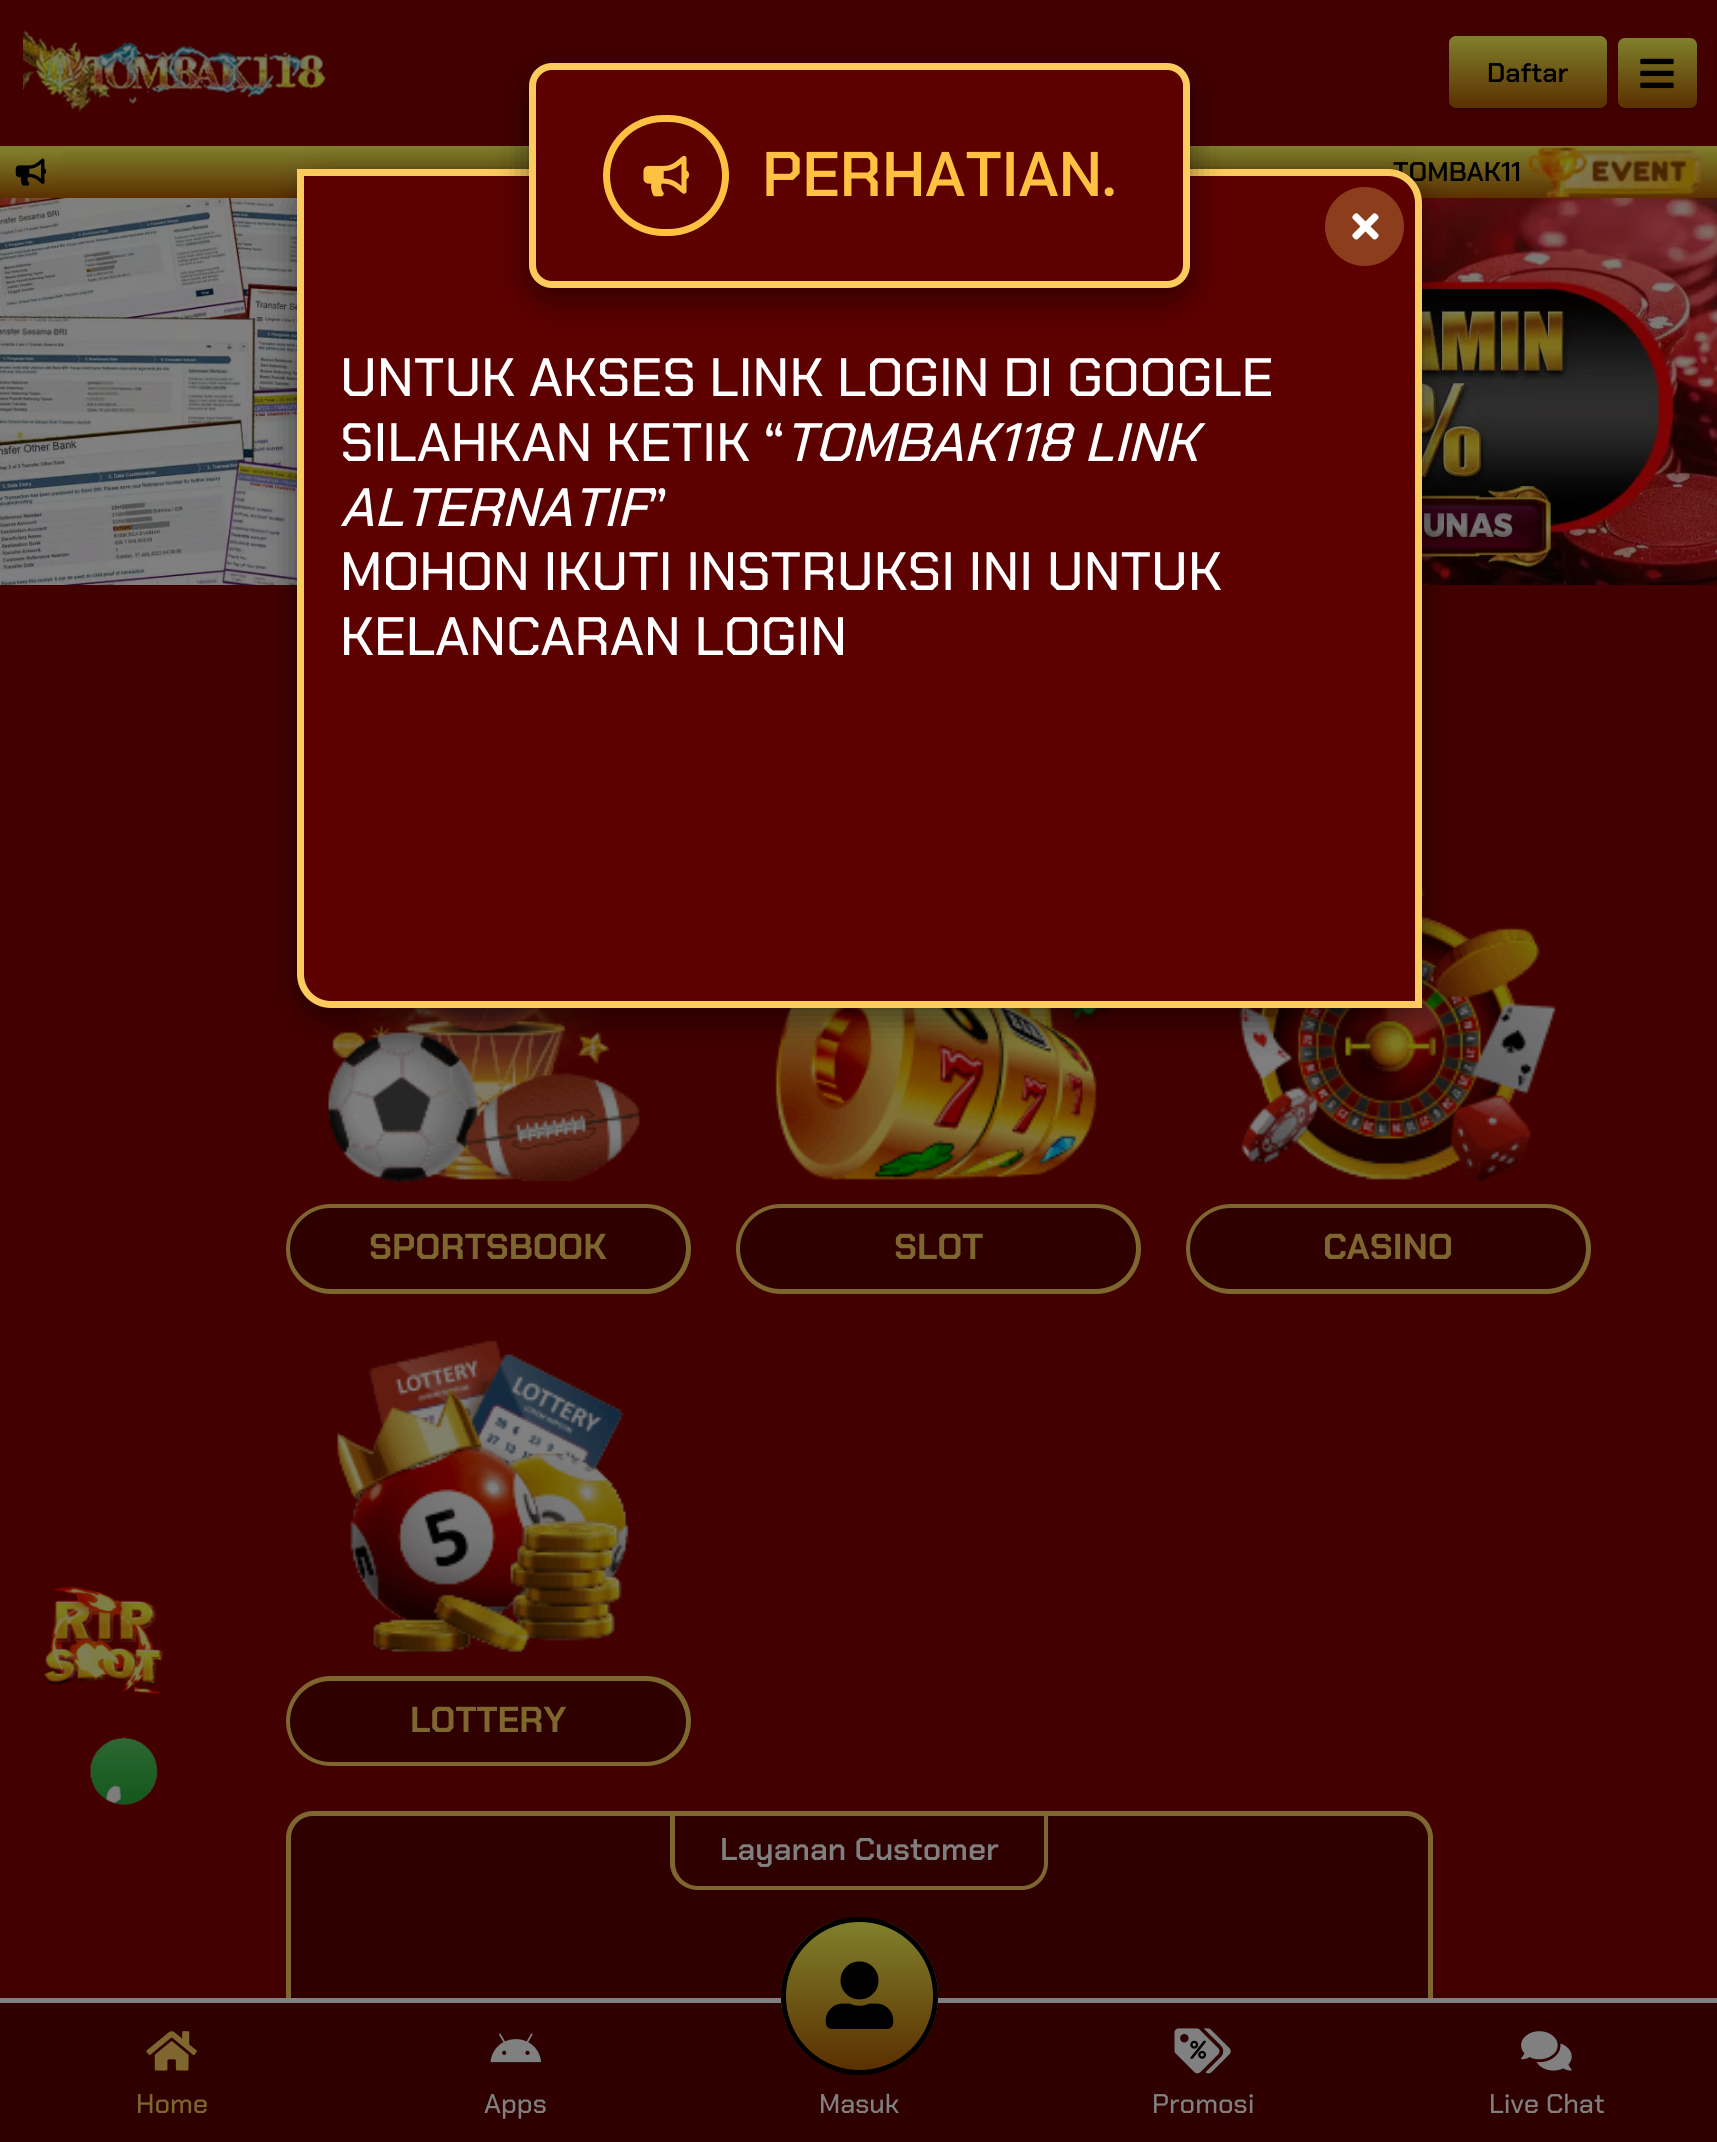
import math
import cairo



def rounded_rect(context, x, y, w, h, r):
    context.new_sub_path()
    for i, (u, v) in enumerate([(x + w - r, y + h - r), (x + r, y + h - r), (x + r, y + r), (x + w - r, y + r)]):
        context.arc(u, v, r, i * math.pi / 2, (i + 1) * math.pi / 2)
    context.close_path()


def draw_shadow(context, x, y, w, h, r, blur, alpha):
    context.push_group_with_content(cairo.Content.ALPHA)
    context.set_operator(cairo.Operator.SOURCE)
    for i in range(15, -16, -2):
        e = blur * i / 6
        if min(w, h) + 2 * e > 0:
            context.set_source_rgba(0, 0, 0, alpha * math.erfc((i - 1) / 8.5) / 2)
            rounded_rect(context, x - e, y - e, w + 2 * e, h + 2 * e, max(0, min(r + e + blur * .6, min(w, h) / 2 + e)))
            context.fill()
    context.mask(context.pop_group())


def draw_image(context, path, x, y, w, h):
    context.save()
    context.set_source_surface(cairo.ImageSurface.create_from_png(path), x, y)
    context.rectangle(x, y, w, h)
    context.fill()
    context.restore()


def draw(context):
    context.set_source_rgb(67 / 255, 0, 0)
    context.paint()
    draw_image(context, "images/1.png", 23, 30, 303, 82)
    context.set_source_rgb(0, 0, 0)
    draw_shadow(context, 1449, 38, 158, 72, 7, 1, 0.25)
    gradient = cairo.LinearGradient(1528, 36, 1528, 108)
    gradient.add_color_stop_rgba(0, 128 / 255, 128 / 255, 44 / 255, 1)
    gradient.add_color_stop_rgba(1, 91 / 255, 48 / 255, 0, 1)
    context.set_source(gradient)
    rounded_rect(context, 1449, 36, 158, 72, 7)
    context.fill()
    context.set_source_rgb(0, 0, 0)
    draw_shadow(context, 1618, 41, 79, 69, 7, 1, 0.25)
    gradient = cairo.LinearGradient(1657, 38, 1657, 108)
    gradient.add_color_stop_rgba(0, 128 / 255, 128 / 255, 44 / 255, 1)
    gradient.add_color_stop_rgba(1, 91 / 255, 48 / 255, 0, 1)
    context.set_source(gradient)
    rounded_rect(context, 1618, 38, 79, 70, 7)
    context.fill()
    draw_image(context, "images/2.png", 1640, 58, 34, 31)
    gradient = cairo.LinearGradient(860, 146, 860, 198)
    gradient.add_color_stop_rgba(0, 128 / 255, 128 / 255, 44 / 255, 1)
    gradient.add_color_stop_rgba(1, 91 / 255, 48 / 255, 0, 1)
    context.set_source(gradient)
    context.rectangle(0, 146, 1717, 52)
    context.fill()
    gradient = cairo.LinearGradient(31, 149, 32, 198)
    gradient.add_color_stop_rgba(0, 128 / 255, 128 / 255, 44 / 255, 1)
    gradient.add_color_stop_rgba(1, 91 / 255, 48 / 255, 0, 1)
    context.set_source(gradient)
    context.rectangle(0, 149, 63, 35)
    context.fill()
    draw_image(context, "images/3.png", 15, 158, 32, 28)
    draw_image(context, "images/4.png", 1527, 147, 175, 51)
    draw_image(context, "images/5.png", 43, 1586, 120, 108)
    draw_image(context, "images/8.png", 0, 198, 1717, 387)
    draw_image(context, "images/9.png", 328, 1008, 314, 174)
    draw_image(context, "images/10.png", 775, 1008, 335, 172)
    draw_image(context, "images/11.png", 1239, 884, 317, 298)
    context.set_source_rgb(0, 0, 0)
    draw_shadow(context, 297, 180, 1125, 839, 34, 17, 0.5)
    context.set_source_rgb(126 / 255, 102 / 255, 47 / 255)
    rounded_rect(context, 286, 1204, 405, 90, 45)
    context.fill()
    context.set_source_rgb(46 / 255, 0, 0)
    rounded_rect(context, 290, 1208, 396, 81, 40.5)
    context.fill()
    context.set_source_rgb(126 / 255, 102 / 255, 47 / 255)
    rounded_rect(context, 736, 1204, 405, 90, 45)
    context.fill()
    context.set_source_rgb(46 / 255, 0, 0)
    rounded_rect(context, 740, 1208, 396, 81, 40.5)
    context.fill()
    context.set_source_rgb(126 / 255, 102 / 255, 47 / 255)
    rounded_rect(context, 1186, 1204, 405, 90, 45)
    context.fill()
    context.set_source_rgb(46 / 255, 0, 0)
    rounded_rect(context, 1190, 1208, 396, 81, 40.5)
    context.fill()
    draw_image(context, "images/12.png", 337, 1340, 292, 313)
    context.set_source_rgb(126 / 255, 102 / 255, 47 / 255)
    rounded_rect(context, 286, 1676, 405, 90, 45)
    context.fill()
    context.set_source_rgb(46 / 255, 0, 0)
    rounded_rect(context, 290, 1681, 396, 81, 40.5)
    context.fill()
    rounded_rect(context, 288.5, 1813.5, 1142, 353, 24.5)
    context.fill_preserve()
    context.set_source_rgb(126 / 255, 102 / 255, 47 / 255)
    context.set_line_width(5)
    context.stroke()
    context.set_fill_rule(cairo.FillRule.EVEN_ODD)
    context.new_path()
    context.move_to(670, 1816)
    context.line_to(1048, 1816)
    context.line_to(1048, 1863)
    context.curve_to(1048, 1878, 1036, 1890, 1022, 1890)
    context.line_to(698, 1890)
    context.curve_to(683, 1890, 670, 1878, 670, 1863)
    context.close_path()
    context.move_to(675, 1816)
    context.line_to(1044, 1816)
    context.line_to(1044, 1863)
    context.curve_to(1044, 1875, 1034, 1886, 1022, 1886)
    context.line_to(698, 1886)
    context.curve_to(685, 1886, 675, 1875, 675, 1863)
    context.close_path()
    context.fill()
    draw_image(context, "images/13.png", 89, 1737, 69, 68)
    context.set_source_rgb(46 / 255, 0, 0)
    context.rectangle(0, 2003, 1717, 139)
    context.fill()
    context.set_source_rgb(128 / 255, 128 / 255, 128 / 255)
    context.rectangle(0, 1998, 1717, 5)
    context.fill()
    draw_image(context, "images/14.png", 146, 2031, 51, 40)
    draw_image(context, "images/15.png", 490, 2033, 52, 30)
    context.save()
    context.set_fill_rule(cairo.FillRule.WINDING)
    rounded_rect(context, 781, 1917, 157, 158, 78.5)
    context.clip()
    gradient = cairo.LinearGradient(860, 1922, 860, 2070)
    gradient.add_color_stop_rgba(0, 128 / 255, 128 / 255, 44 / 255, 1)
    gradient.add_color_stop_rgba(1, 91 / 255, 48 / 255, 0, 1)
    context.set_source(gradient)
    context.rectangle(781, 1922, 157, 148)
    context.fill()
    context.restore()
    rounded_rect(context, 783.5, 1919.5, 152, 153, 76)
    context.set_source_rgb(0, 0, 0)
    context.stroke()
    draw_image(context, "images/16.png", 825, 1961, 69, 68)
    draw_image(context, "images/17.png", 1174, 2028, 57, 46)
    draw_image(context, "images/18.png", 1190, 2040, 16, 19)
    draw_image(context, "images/19.png", 1521, 2031, 51, 40)
    context.select_font_face("Chakra Petch SemiBold")
    context.set_font_size(27)
    context.move_to(1487, 82)
    context.show_text("Daftar")
    context.move_to(1393, 181)
    context.show_text("TOMBAK11")
    context.set_source_rgb(92 / 255, 0, 0)
    context.new_path()
    context.move_to(300.5, 172.5)
    context.line_to(1388, 172.5)
    context.curve_to(1405, 172.5, 1418.5, 186, 1418.5, 203)
    context.line_to(1418.5, 1004.5)
    context.line_to(331, 1004.5)
    context.curve_to(314, 1004.5, 300.5, 991, 300.5, 974)
    context.close_path()
    context.fill_preserve()
    context.set_source_rgb(251 / 255, 203 / 255, 93 / 255)
    context.set_line_width(7)
    context.stroke()
    context.set_source_rgb(0, 0, 0)
    draw_shadow(context, 529, 74, 661, 225, 23, 17, 0.5)
    context.set_source_rgb(92 / 255, 0, 0)
    rounded_rect(context, 532.5, 66.5, 654, 218, 19.5)
    context.fill_preserve()
    context.set_source_rgb(251 / 255, 203 / 255, 93 / 255)
    context.stroke()
    rounded_rect(context, 606.5, 118.5, 119, 114, 57)
    context.set_source_rgb(1, 193 / 255, 65 / 255)
    context.stroke()
    draw_image(context, "images/6.png", 643, 155, 47, 42)
    context.set_font_size(63)
    context.move_to(762, 196)
    context.show_text("PERHATIAN.")
    context.set_source_rgb(140 / 255, 61 / 255, 28 / 255)
    context.new_path()
    context.arc(1364.5, 226.5, 39.5, 0, 2 * math.pi)
    context.fill()
    draw_image(context, "images/7.png", 1352, 213, 27, 27)
    context.select_font_face("Chakra Petch Medium")
    context.set_font_size(54)
    context.set_source_rgb(1, 1, 1)
    context.move_to(340, 396)
    context.show_text("UNTUK AKSES LINK LOGIN DI GOOGLE")
    context.move_to(340, 461)
    context.show_text("SILAHKAN KETIK “")
    context.select_font_face("Chakra Petch Medium", cairo.FontSlant.ITALIC)
    context.move_to(784, 461)
    context.show_text("TOMBAK118 LINK")
    context.move_to(340, 526)
    context.show_text("ALTERNATIF")
    context.select_font_face("Chakra Petch Medium")
    context.move_to(647, 526)
    context.show_text("”")
    context.move_to(340, 590)
    context.show_text("MOHON IKUTI INSTRUKSI INI UNTUK")
    context.move_to(340, 655)
    context.show_text("KELANCARAN LOGIN")
    context.select_font_face("Chakra Petch", cairo.FontSlant.NORMAL, cairo.FontWeight.BOLD)
    context.set_font_size(36)
    context.set_source_rgb(126 / 255, 102 / 255, 47 / 255)
    context.move_to(369, 1259)
    context.show_text("SPORTSBOOK")
    context.move_to(894, 1259)
    context.show_text("SLOT")
    context.move_to(1323, 1259)
    context.show_text("CASINO")
    context.move_to(410, 1732)
    context.show_text("LOTTERY")
    context.select_font_face("Chakra Petch SemiBold")
    context.set_font_size(31.5)
    context.set_source_rgb(128 / 255, 128 / 255, 128 / 255)
    context.move_to(720, 1860)
    context.show_text("Layanan Customer")
    context.select_font_face("Chakra Petch Medium")
    context.set_font_size(27)
    context.set_source_rgb(126 / 255, 102 / 255, 47 / 255)
    context.move_to(136, 2113)
    context.show_text("Home")
    context.set_source_rgb(128 / 255, 128 / 255, 128 / 255)
    context.move_to(484, 2113)
    context.show_text("Apps")
    context.move_to(819, 2113)
    context.show_text("Masuk")
    context.move_to(1152, 2113)
    context.show_text("Promosi")
    context.move_to(1489, 2113)
    context.show_text("Live Chat")


surface = cairo.ImageSurface(cairo.Format.RGB24, 1717, 2142)
context = cairo.Context(surface)
options = cairo.FontOptions()
options.set_hint_metrics(cairo.HintMetrics.OFF)
options.set_hint_style(cairo.HintStyle.NONE)
context.set_font_options(options)
context.set_miter_limit(4)
draw(context)
surface.write_to_png("out.png")
